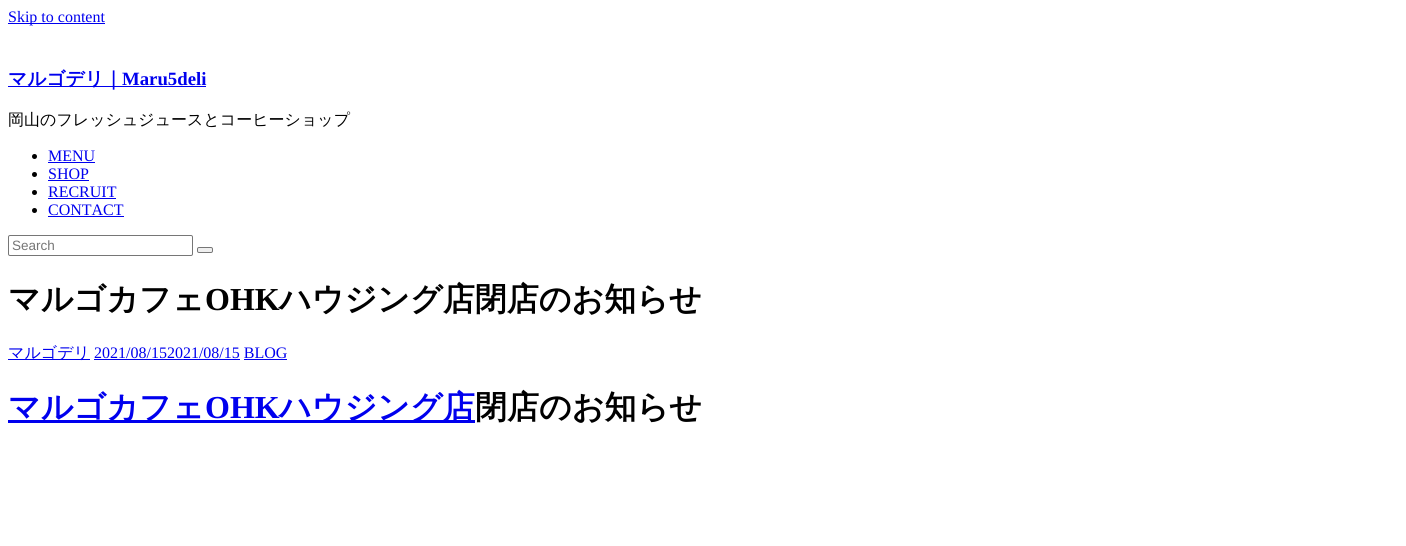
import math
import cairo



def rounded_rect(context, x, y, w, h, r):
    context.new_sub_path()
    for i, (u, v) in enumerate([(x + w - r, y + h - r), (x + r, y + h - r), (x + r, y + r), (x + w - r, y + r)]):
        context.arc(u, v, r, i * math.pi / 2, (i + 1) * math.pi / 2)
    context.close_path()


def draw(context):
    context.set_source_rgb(1, 1, 1)
    context.paint()
    context.set_source_rgb(0, 0, 238 / 255)
    context.rectangle(8, 23, 97, 1)
    context.fill()
    context.rectangle(8, 86, 198, 1)
    context.fill()
    context.set_source_rgb(0, 0, 0)
    context.arc(34.5, 156.5, 2.5, 0, 2 * math.pi)
    context.fill()
    context.set_source_rgb(0, 0, 238 / 255)
    context.rectangle(48, 162, 47, 1)
    context.fill()
    context.set_source_rgb(0, 0, 0)
    context.arc(34.5, 174.5, 2.5, 0, 2 * math.pi)
    context.fill()
    context.set_source_rgb(0, 0, 238 / 255)
    context.rectangle(48, 180, 41, 1)
    context.fill()
    context.set_source_rgb(0, 0, 0)
    context.arc(34.5, 192.5, 2.5, 0, 2 * math.pi)
    context.fill()
    context.set_source_rgb(0, 0, 238 / 255)
    context.rectangle(48, 198, 68, 1)
    context.fill()
    context.set_source_rgb(0, 0, 0)
    context.arc(34.5, 210.5, 2.5, 0, 2 * math.pi)
    context.fill()
    context.set_source_rgb(0, 0, 238 / 255)
    context.rectangle(48, 216, 76, 1)
    context.fill()
    rounded_rect(context, 8.5, 235.5, 184, 20, 1.5)
    context.set_source_rgb(118 / 255, 118 / 255, 118 / 255)
    context.set_line_width(1)
    context.stroke()
    context.set_source_rgb(239 / 255, 239 / 255, 239 / 255)
    rounded_rect(context, 197.5, 247.5, 15, 5, 1.5)
    context.fill_preserve()
    context.set_source_rgb(118 / 255, 118 / 255, 118 / 255)
    context.stroke()
    context.set_source_rgb(0, 0, 238 / 255)
    context.rectangle(8, 359, 82, 1)
    context.fill()
    context.rectangle(94, 359, 146, 1)
    context.fill()
    context.rectangle(244, 359, 43, 1)
    context.fill()
    context.rectangle(8, 420, 467, 3)
    context.fill()
    context.select_font_face("Liberation Serif")
    context.set_font_size(16)
    context.move_to(8, 22)
    context.show_text("Skip to content")
    context.select_font_face("WenQuanYi Zen Hei", cairo.FontSlant.NORMAL, cairo.FontWeight.BOLD)
    context.set_font_size(18.75)
    context.move_to(8, 85)
    context.show_text("マルゴデリ｜")
    context.select_font_face("Liberation Serif", cairo.FontSlant.NORMAL, cairo.FontWeight.BOLD)
    context.move_to(122, 85)
    context.show_text("Maru5deli")
    context.select_font_face("WenQuanYi Zen Hei Medium")
    context.set_font_size(16)
    context.set_source_rgb(0, 0, 0)
    context.move_to(8, 125)
    context.show_text("岡山のフレッシュジュースとコーヒーショップ")
    context.select_font_face("Liberation Serif")
    context.set_source_rgb(0, 0, 238 / 255)
    context.move_to(48, 161)
    context.show_text("MENU")
    context.move_to(48, 179)
    context.show_text("SHOP")
    context.move_to(48, 197)
    context.show_text("RECRUIT")
    context.move_to(48, 215)
    context.show_text("CONTACT")
    context.select_font_face("Liberation Sans")
    context.set_font_size(13.5)
    context.set_source_rgb(117 / 255, 117 / 255, 117 / 255)
    context.move_to(12, 250)
    context.show_text("Search")
    context.select_font_face("WenQuanYi Zen Hei", cairo.FontSlant.NORMAL, cairo.FontWeight.BOLD)
    context.set_font_size(32)
    context.set_source_rgb(0, 0, 0)
    context.move_to(8, 310)
    context.show_text("マルゴカフェ")
    context.select_font_face("Liberation Serif", cairo.FontSlant.NORMAL, cairo.FontWeight.BOLD)
    context.move_to(205, 310)
    context.show_text("OHK")
    context.select_font_face("WenQuanYi Zen Hei", cairo.FontSlant.NORMAL, cairo.FontWeight.BOLD)
    context.move_to(279, 310)
    context.show_text("ハウジング店閉店のお知らせ")
    context.select_font_face("WenQuanYi Zen Hei Medium")
    context.set_font_size(16)
    context.set_source_rgb(0, 0, 238 / 255)
    context.move_to(8, 358)
    context.show_text("マルゴデリ")
    context.select_font_face("Liberation Serif")
    context.move_to(94, 358)
    context.show_text("2021/08/152021/08/15 BLOG")
    context.select_font_face("WenQuanYi Zen Hei", cairo.FontSlant.NORMAL, cairo.FontWeight.BOLD)
    context.set_font_size(32)
    context.move_to(8, 418)
    context.show_text("マルゴカフェ")
    context.select_font_face("Liberation Serif", cairo.FontSlant.NORMAL, cairo.FontWeight.BOLD)
    context.move_to(205, 418)
    context.show_text("OHK")
    context.select_font_face("WenQuanYi Zen Hei", cairo.FontSlant.NORMAL, cairo.FontWeight.BOLD)
    context.move_to(279, 418)
    context.show_text("ハウジング店")
    context.set_source_rgb(0, 0, 0)
    context.move_to(475, 418)
    context.show_text("閉店のお知らせ")


surface = cairo.ImageSurface(cairo.Format.RGB24, 1406, 546)
context = cairo.Context(surface)
options = cairo.FontOptions()
options.set_hint_metrics(cairo.HintMetrics.OFF)
options.set_hint_style(cairo.HintStyle.NONE)
context.set_font_options(options)
context.set_miter_limit(4)
draw(context)
surface.write_to_png("out.png")
